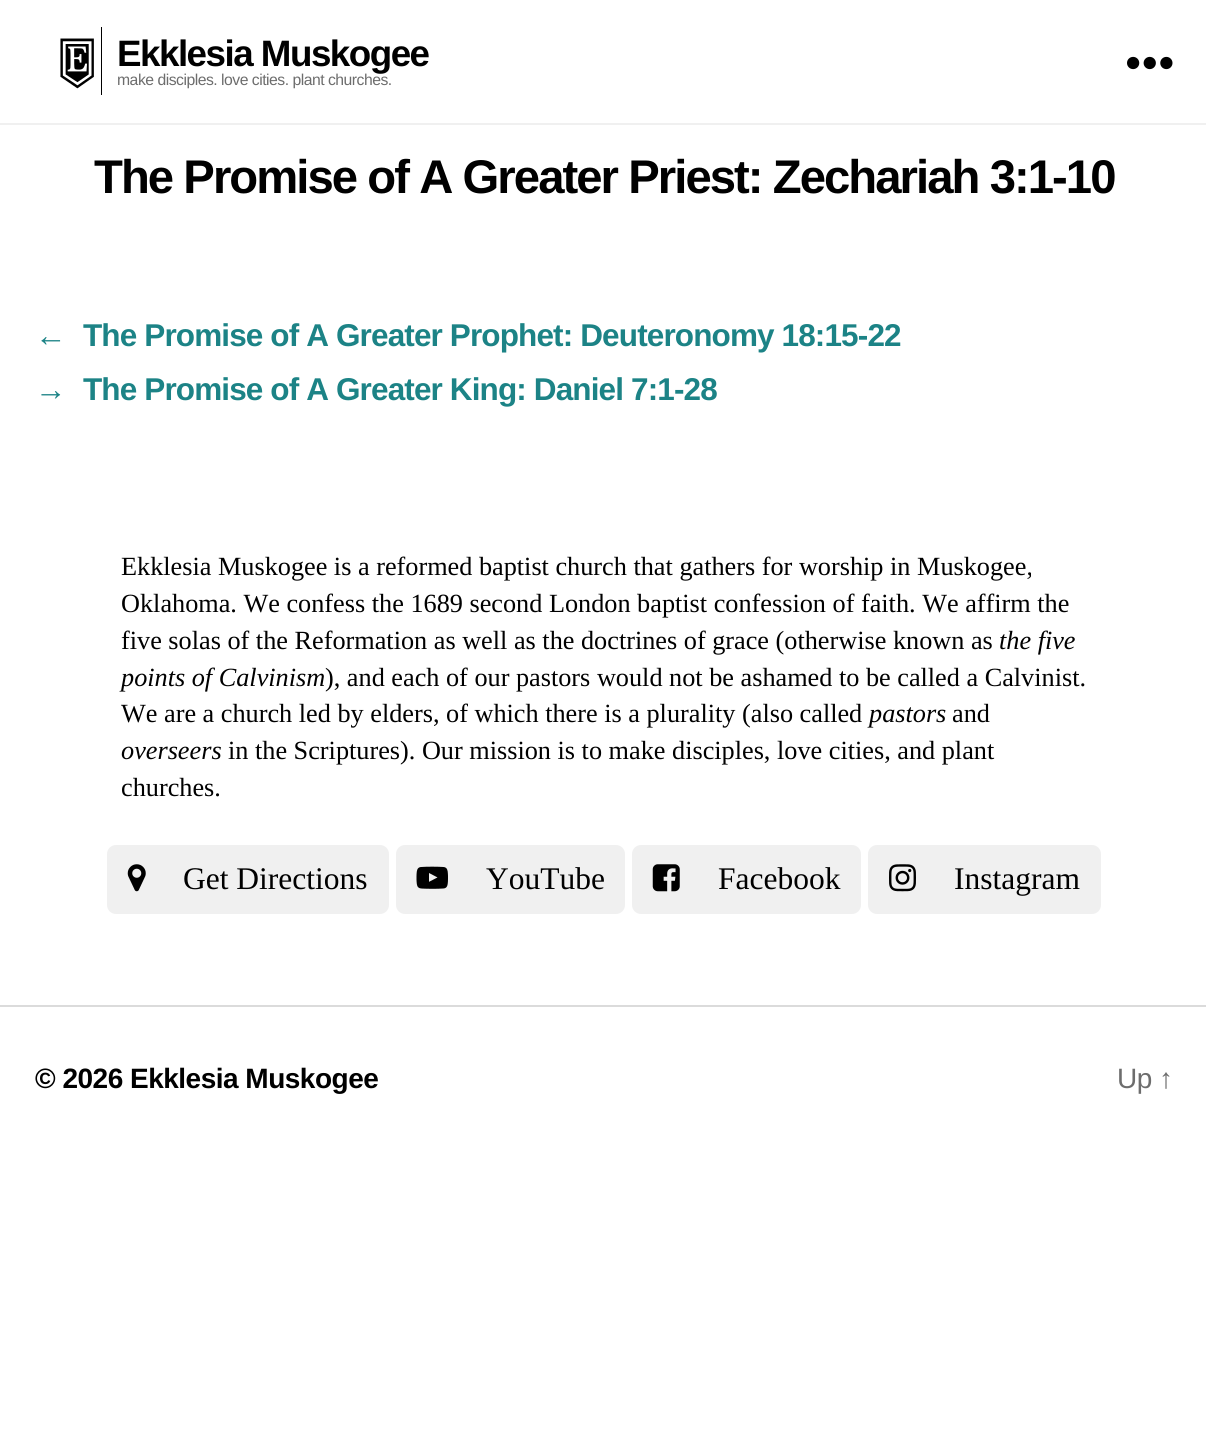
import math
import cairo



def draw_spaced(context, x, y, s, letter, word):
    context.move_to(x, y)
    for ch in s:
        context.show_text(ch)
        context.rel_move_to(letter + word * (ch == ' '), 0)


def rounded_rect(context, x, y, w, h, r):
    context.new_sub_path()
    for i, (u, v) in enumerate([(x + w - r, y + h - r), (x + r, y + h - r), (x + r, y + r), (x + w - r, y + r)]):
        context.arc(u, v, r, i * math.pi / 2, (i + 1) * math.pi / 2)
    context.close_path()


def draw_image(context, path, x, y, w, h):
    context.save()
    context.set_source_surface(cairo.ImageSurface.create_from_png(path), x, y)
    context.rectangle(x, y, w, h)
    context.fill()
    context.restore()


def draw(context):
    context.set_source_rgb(1, 1, 1)
    context.paint()
    context.set_source_rgb(240 / 255, 240 / 255, 240 / 255)
    context.rectangle(0, 123, 1206, 2)
    context.fill()
    draw_image(context, "images/1.png", 60, 27, 42, 68)
    draw_image(context, "images/2.png", 1127, 56, 46, 14)
    rounded_rect(context, 107, 845, 282, 69, 9)
    context.fill()
    draw_image(context, "images/3.png", 127, 864, 19, 28)
    rounded_rect(context, 396, 845, 229, 69, 9)
    context.fill()
    draw_image(context, "images/4.png", 416, 866, 32, 23)
    rounded_rect(context, 632, 845, 229, 69, 9)
    context.fill()
    draw_image(context, "images/5.png", 652, 864, 28, 28)
    rounded_rect(context, 868, 845, 233, 69, 9)
    context.fill()
    draw_image(context, "images/6.png", 889, 864, 27, 28)
    context.set_source_rgb(219 / 255, 219 / 255, 219 / 255)
    context.rectangle(0, 1005, 1206, 2)
    context.fill()
    context.select_font_face("Liberation Sans", cairo.FontSlant.NORMAL, cairo.FontWeight.BOLD)
    context.set_font_size(36.75)
    context.set_source_rgb(0, 0, 0)
    draw_spaced(context, 117, 66, "Ekklesia Muskogee", -1.5, 0)
    context.select_font_face("Liberation Sans")
    context.set_font_size(15.75)
    context.set_source_rgb(109 / 255, 109 / 255, 109 / 255)
    draw_spaced(context, 117, 85, "make disciples. love cities. plant churches.", -0.5, 0)
    context.select_font_face("Liberation Sans", cairo.FontSlant.NORMAL, cairo.FontWeight.BOLD)
    context.set_font_size(47.25)
    context.set_source_rgb(0, 0, 0)
    draw_spaced(context, 94, 193, "The Promise of A Greater Priest: Zechariah 3:1-10", -1.95, 0)
    context.set_font_size(31.5)
    context.set_source_rgb(28 / 255, 131 / 255, 134 / 255)
    draw_spaced(context, 35, 346, "←", -0.87, 0)
    draw_spaced(context, 83, 346, "The Promise of A Greater Prophet: Deuteronomy 18:15-22", -0.87, 0)
    draw_spaced(context, 35, 400, "→", -0.87, 0)
    draw_spaced(context, 83, 400, "The Promise of A Greater King: Daniel 7:1-28", -0.87, 0)
    context.select_font_face("Liberation Serif")
    context.set_font_size(26.25)
    context.set_source_rgb(0, 0, 0)
    context.move_to(121, 575)
    context.show_text("Ekklesia Muskogee is a reformed baptist church that gathers for worship in Muskogee,")
    context.move_to(121, 612)
    context.show_text("Oklahoma. We confess the 1689 second London baptist confession of faith. We affirm the")
    context.move_to(121, 649)
    context.show_text("five solas of the Reformation as well as the doctrines of grace (otherwise known as")
    context.select_font_face("Liberation Serif", cairo.FontSlant.ITALIC)
    context.move_to(999, 649)
    context.show_text("the five")
    context.move_to(121, 686)
    context.show_text("points of Calvinism")
    context.select_font_face("Liberation Serif")
    context.move_to(325, 686)
    context.show_text("), and each of our pastors would not be ashamed to be called a Calvinist.")
    context.move_to(121, 722)
    context.show_text("We are a church led by elders, of which there is a plurality (also called")
    context.select_font_face("Liberation Serif", cairo.FontSlant.ITALIC)
    context.move_to(869, 722)
    context.show_text("pastors")
    context.select_font_face("Liberation Serif")
    context.move_to(952, 722)
    context.show_text("and")
    context.select_font_face("Liberation Serif", cairo.FontSlant.ITALIC)
    context.move_to(121, 759)
    context.show_text("overseers")
    context.select_font_face("Liberation Serif")
    context.move_to(228, 759)
    context.show_text("in the Scriptures). Our mission is to make disciples, love cities, and plant")
    context.move_to(121, 796)
    context.show_text("churches.")
    context.set_font_size(31.5)
    context.move_to(183, 889)
    context.show_text("Get Directions")
    context.move_to(486, 889)
    context.show_text("YouTube")
    context.move_to(718, 889)
    context.show_text("Facebook")
    context.move_to(954, 889)
    context.show_text("Instagram")
    context.select_font_face("Liberation Sans", cairo.FontSlant.NORMAL, cairo.FontWeight.BOLD)
    context.set_font_size(28)
    draw_spaced(context, 35, 1088, "© 2026 Ekklesia Muskogee", -0.5, 0)
    context.select_font_face("Liberation Sans")
    context.set_source_rgb(109 / 255, 109 / 255, 109 / 255)
    draw_spaced(context, 1117, 1088, "Up ↑", -0.5, 0)


surface = cairo.ImageSurface(cairo.Format.RGB24, 1206, 1452)
context = cairo.Context(surface)
options = cairo.FontOptions()
options.set_hint_metrics(cairo.HintMetrics.OFF)
options.set_hint_style(cairo.HintStyle.NONE)
context.set_font_options(options)
context.set_miter_limit(4)
draw(context)
surface.write_to_png("out.png")
